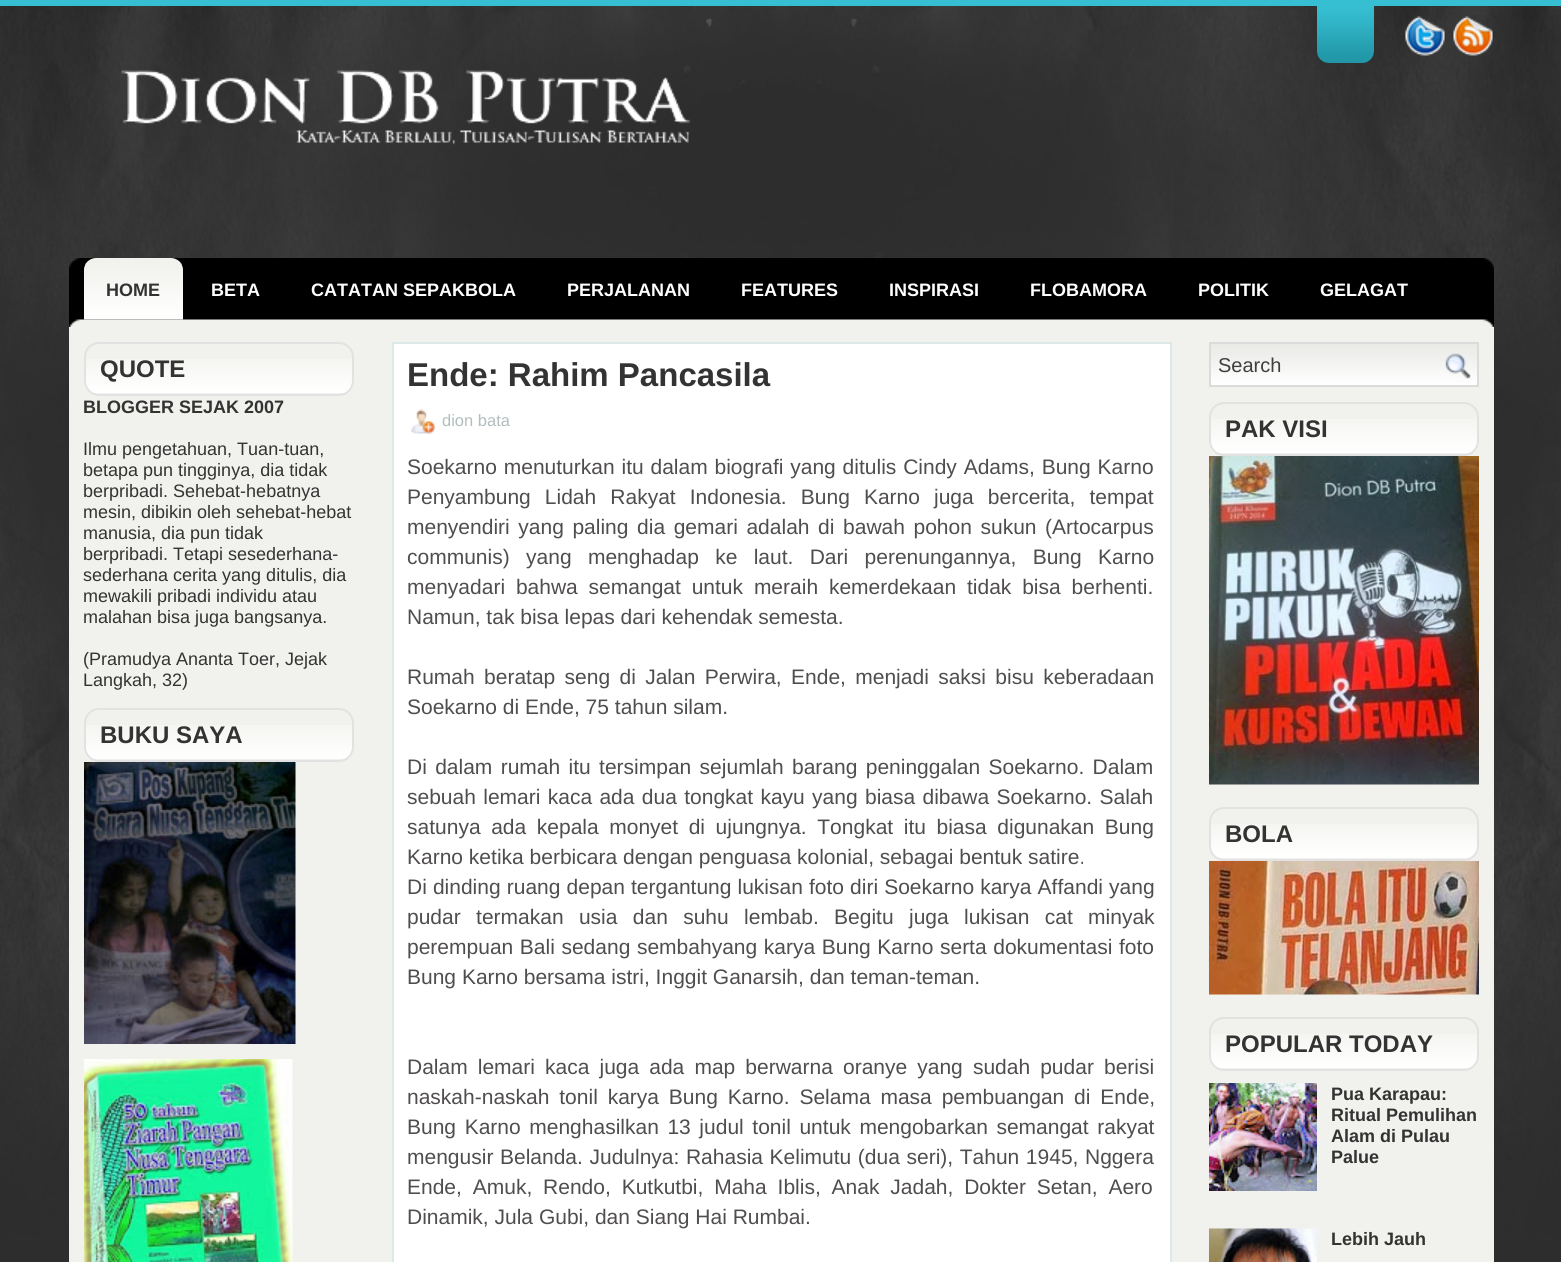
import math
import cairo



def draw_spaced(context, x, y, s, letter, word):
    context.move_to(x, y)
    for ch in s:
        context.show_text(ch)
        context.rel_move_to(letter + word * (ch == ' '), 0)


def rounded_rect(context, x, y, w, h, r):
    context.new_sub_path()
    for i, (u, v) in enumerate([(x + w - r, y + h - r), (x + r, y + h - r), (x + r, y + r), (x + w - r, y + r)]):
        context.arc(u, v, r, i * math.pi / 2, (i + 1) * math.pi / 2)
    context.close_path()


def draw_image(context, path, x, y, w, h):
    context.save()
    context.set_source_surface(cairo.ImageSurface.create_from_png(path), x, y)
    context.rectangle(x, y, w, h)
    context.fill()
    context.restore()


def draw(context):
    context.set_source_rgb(45 / 255, 45 / 255, 45 / 255)
    context.paint()
    context.set_source_rgb(54 / 255, 191 / 255, 210 / 255)
    context.rectangle(0, 0, 1561, 6)
    context.fill()
    draw_image(context, "images/1.png", 0, 6, 1561, 1235)
    draw_image(context, "images/2.png", 1317, 6, 57, 57)
    draw_image(context, "images/3.png", 1405, 16, 41, 40)
    draw_image(context, "images/4.png", 1452, 16, 42, 40)
    draw_image(context, "images/5.png", 121, 70, 569, 75)
    draw_image(context, "images/6.png", 69, 258, 1425, 69)
    draw_image(context, "images/7.png", 84, 258, 99, 62)
    context.set_source_rgb(241 / 255, 241 / 255, 237 / 255)
    context.rectangle(69, 327, 1425, 935)
    context.fill()
    draw_image(context, "images/8.png", 84, 359, 270, 34)
    rounded_rect(context, 85, 343, 268, 52, 14)
    context.set_source_rgb(227 / 255, 225 / 255, 225 / 255)
    context.stroke()
    draw_image(context, "images/8.png", 84, 725, 270, 34)
    rounded_rect(context, 85, 709, 268, 52, 14)
    context.stroke()
    draw_image(context, "images/9.png", 84, 762, 212, 282)
    draw_image(context, "images/10.png", 84, 1059, 209, 203)
    context.set_source_rgb(1, 1, 1)
    context.rectangle(393, 343, 778, 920)
    context.fill_preserve()
    context.set_source_rgb(221 / 255, 232 / 255, 233 / 255)
    context.stroke()
    draw_image(context, "images/11.png", 411, 409, 24, 25)
    draw_image(context, "images/12.png", 1211, 344, 266, 41)
    context.rectangle(1210, 343, 268, 43)
    context.set_source_rgb(219 / 255, 219 / 255, 219 / 255)
    context.stroke()
    draw_image(context, "images/13.png", 1445, 353, 26, 26)
    draw_image(context, "images/8.png", 1209, 419, 270, 34)
    rounded_rect(context, 1210, 403, 268, 52, 14)
    context.set_source_rgb(227 / 255, 225 / 255, 225 / 255)
    context.stroke()
    draw_image(context, "images/14.png", 1209, 456, 270, 329)
    draw_image(context, "images/8.png", 1209, 824, 270, 34)
    rounded_rect(context, 1210, 808, 268, 52, 14)
    context.stroke()
    draw_image(context, "images/15.png", 1209, 861, 270, 134)
    draw_image(context, "images/8.png", 1209, 1034, 270, 34)
    rounded_rect(context, 1210, 1018, 268, 52, 14)
    context.stroke()
    draw_image(context, "images/16.png", 1209, 1083, 108, 108)
    draw_image(context, "images/17.png", 1209, 1228, 108, 34)
    context.select_font_face("Liberation Sans", cairo.FontSlant.NORMAL, cairo.FontWeight.BOLD)
    context.set_font_size(18)
    context.set_source_rgb(51 / 255, 51 / 255, 51 / 255)
    context.move_to(106, 296)
    context.show_text("HOME")
    context.set_source_rgb(1, 1, 1)
    context.move_to(211, 296)
    context.show_text("BETA")
    context.move_to(311, 296)
    context.show_text("CATATAN SEPAKBOLA")
    context.move_to(567, 296)
    context.show_text("PERJALANAN")
    context.move_to(741, 296)
    context.show_text("FEATURES")
    context.move_to(889, 296)
    context.show_text("INSPIRASI")
    context.move_to(1030, 296)
    context.show_text("FLOBAMORA")
    context.move_to(1198, 296)
    context.show_text("POLITIK")
    context.move_to(1320, 296)
    context.show_text("GELAGAT")
    context.set_font_size(24)
    context.set_source_rgb(51 / 255, 51 / 255, 51 / 255)
    context.move_to(100, 377)
    context.show_text("QUOTE")
    context.set_font_size(18)
    context.move_to(83, 413)
    context.show_text("BLOGGER SEJAK 2007")
    context.select_font_face("Liberation Sans")
    context.move_to(83, 455)
    context.show_text("Ilmu pengetahuan, Tuan-tuan,")
    context.move_to(83, 476)
    context.show_text("betapa pun tingginya, dia tidak")
    context.move_to(83, 497)
    context.show_text("berpribadi. Sehebat-hebatnya")
    context.move_to(83, 518)
    context.show_text("mesin, dibikin oleh sehebat-hebat")
    context.move_to(83, 539)
    context.show_text("manusia, dia pun tidak")
    context.move_to(83, 560)
    context.show_text("berpribadi. Tetapi sesederhana-")
    context.move_to(83, 581)
    context.show_text("sederhana cerita yang ditulis, dia")
    context.move_to(83, 602)
    context.show_text("mewakili pribadi individu atau")
    context.move_to(83, 623)
    context.show_text("malahan bisa juga bangsanya.")
    context.move_to(83, 665)
    context.show_text("(Pramudya Ananta Toer, Jejak")
    context.move_to(83, 686)
    context.show_text("Langkah, 32)")
    context.select_font_face("Liberation Sans", cairo.FontSlant.NORMAL, cairo.FontWeight.BOLD)
    context.set_font_size(24)
    context.move_to(100, 743)
    context.show_text("BUKU SAYA")
    context.set_font_size(33)
    context.move_to(407, 386)
    context.show_text("Ende: Rahim Pancasila")
    context.select_font_face("Liberation Sans")
    context.set_font_size(16.5)
    context.set_source_rgb(178 / 255, 189 / 255, 191 / 255)
    context.move_to(442, 426)
    context.show_text("dion bata")
    context.set_font_size(21)
    context.set_source_rgb(80 / 255, 77 / 255, 77 / 255)
    draw_spaced(context, 407, 474, "Soekarno menuturkan itu dalam biografi yang ditulis Cindy Adams, Bung Karno", 0, 1)
    draw_spaced(context, 407, 504, "Penyambung Lidah Rakyat Indonesia. Bung Karno juga bercerita, tempat", 0, 8.25)
    draw_spaced(context, 407, 534, "menyendiri yang paling dia gemari adalah di bawah pohon sukun (Artocarpus", 0, 2.75)
    draw_spaced(context, 407, 564, "communis) yang menghadap ke laut. Dari perenungannya, Bung Karno", 0, 10.5)
    draw_spaced(context, 407, 594, "menyadari bahwa semangat untuk meraih kemerdekaan tidak bisa berhenti.", 0, 5)
    context.move_to(407, 624)
    context.show_text("Namun, tak bisa lepas dari kehendak semesta.")
    draw_spaced(context, 407, 684, "Rumah beratap seng di Jalan Perwira, Ende, menjadi saksi bisu keberadaan", 0, 3.5)
    context.move_to(407, 714)
    context.show_text("Soekarno di Ende, 75 tahun silam.")
    draw_spaced(context, 407, 774, "Di dalam rumah itu tersimpan sejumlah barang peninggalan Soekarno. Dalam", 0, 2.5)
    draw_spaced(context, 407, 804, "sebuah lemari kaca ada dua tongkat kayu yang biasa dibawa Soekarno. Salah", 0, 1.5)
    draw_spaced(context, 407, 834, "satunya ada kepala monyet di ujungnya. Tongkat itu biasa digunakan Bung", 0, 4.75)
    context.move_to(407, 864)
    context.show_text("Karno ketika berbicara dengan penguasa kolonial, sebagai bentuk satire.")
    draw_spaced(context, 407, 894, "Di dinding ruang depan tergantung lukisan foto diri Soekarno karya Affandi yang", 0, 0.25)
    draw_spaced(context, 407, 924, "pudar termakan usia dan suhu lembab. Begitu juga lukisan cat minyak", 0, 9.5)
    draw_spaced(context, 407, 954, "perempuan Bali sedang sembahyang karya Bung Karno serta dokumentasi foto", 0, 0.75)
    context.move_to(407, 984)
    context.show_text("Bung Karno bersama istri, Inggit Ganarsih, dan teman-teman.")
    draw_spaced(context, 407, 1074, "Dalam lemari kaca juga ada map berwarna oranye yang sudah pudar berisi", 0, 4.25)
    draw_spaced(context, 407, 1104, "naskah-naskah tonil karya Bung Karno. Selama masa pembuangan di Ende,", 0, 4)
    draw_spaced(context, 407, 1134, "Bung Karno menghasilkan 13 judul tonil untuk mengobarkan semangat rakyat", 0, 2.75)
    draw_spaced(context, 407, 1164, "mengusir Belanda. Judulnya: Rahasia Kelimutu (dua seri), Tahun 1945, Nggera", 0, 0.75)
    draw_spaced(context, 407, 1194, "Ende, Amuk, Rendo, Kutkutbi, Maha Iblis, Anak Jadah, Dokter Setan, Aero", 0, 5)
    context.move_to(407, 1224)
    context.show_text("Dinamik, Jula Gubi, dan Siang Hai Rumbai.")
    context.set_font_size(20)
    context.set_source_rgb(63 / 255, 63 / 255, 63 / 255)
    context.move_to(1218, 372)
    context.show_text("Search")
    context.select_font_face("Liberation Sans", cairo.FontSlant.NORMAL, cairo.FontWeight.BOLD)
    context.set_font_size(24)
    context.set_source_rgb(51 / 255, 51 / 255, 51 / 255)
    context.move_to(1225, 437)
    context.show_text("PAK VISI")
    context.move_to(1225, 842)
    context.show_text("BOLA")
    context.move_to(1225, 1052)
    context.show_text("POPULAR TODAY")
    context.set_font_size(18)
    context.move_to(1331, 1100)
    context.show_text("Pua Karapau:")
    context.move_to(1331, 1121)
    context.show_text("Ritual Pemulihan")
    context.move_to(1331, 1142)
    context.show_text("Alam di Pulau")
    context.move_to(1331, 1163)
    context.show_text("Palue")
    context.move_to(1331, 1245)
    context.show_text("Lebih Jauh")


surface = cairo.ImageSurface(cairo.Format.RGB24, 1561, 1262)
context = cairo.Context(surface)
options = cairo.FontOptions()
options.set_hint_metrics(cairo.HintMetrics.OFF)
options.set_hint_style(cairo.HintStyle.NONE)
context.set_font_options(options)
context.set_miter_limit(4)
draw(context)
surface.write_to_png("out.png")
